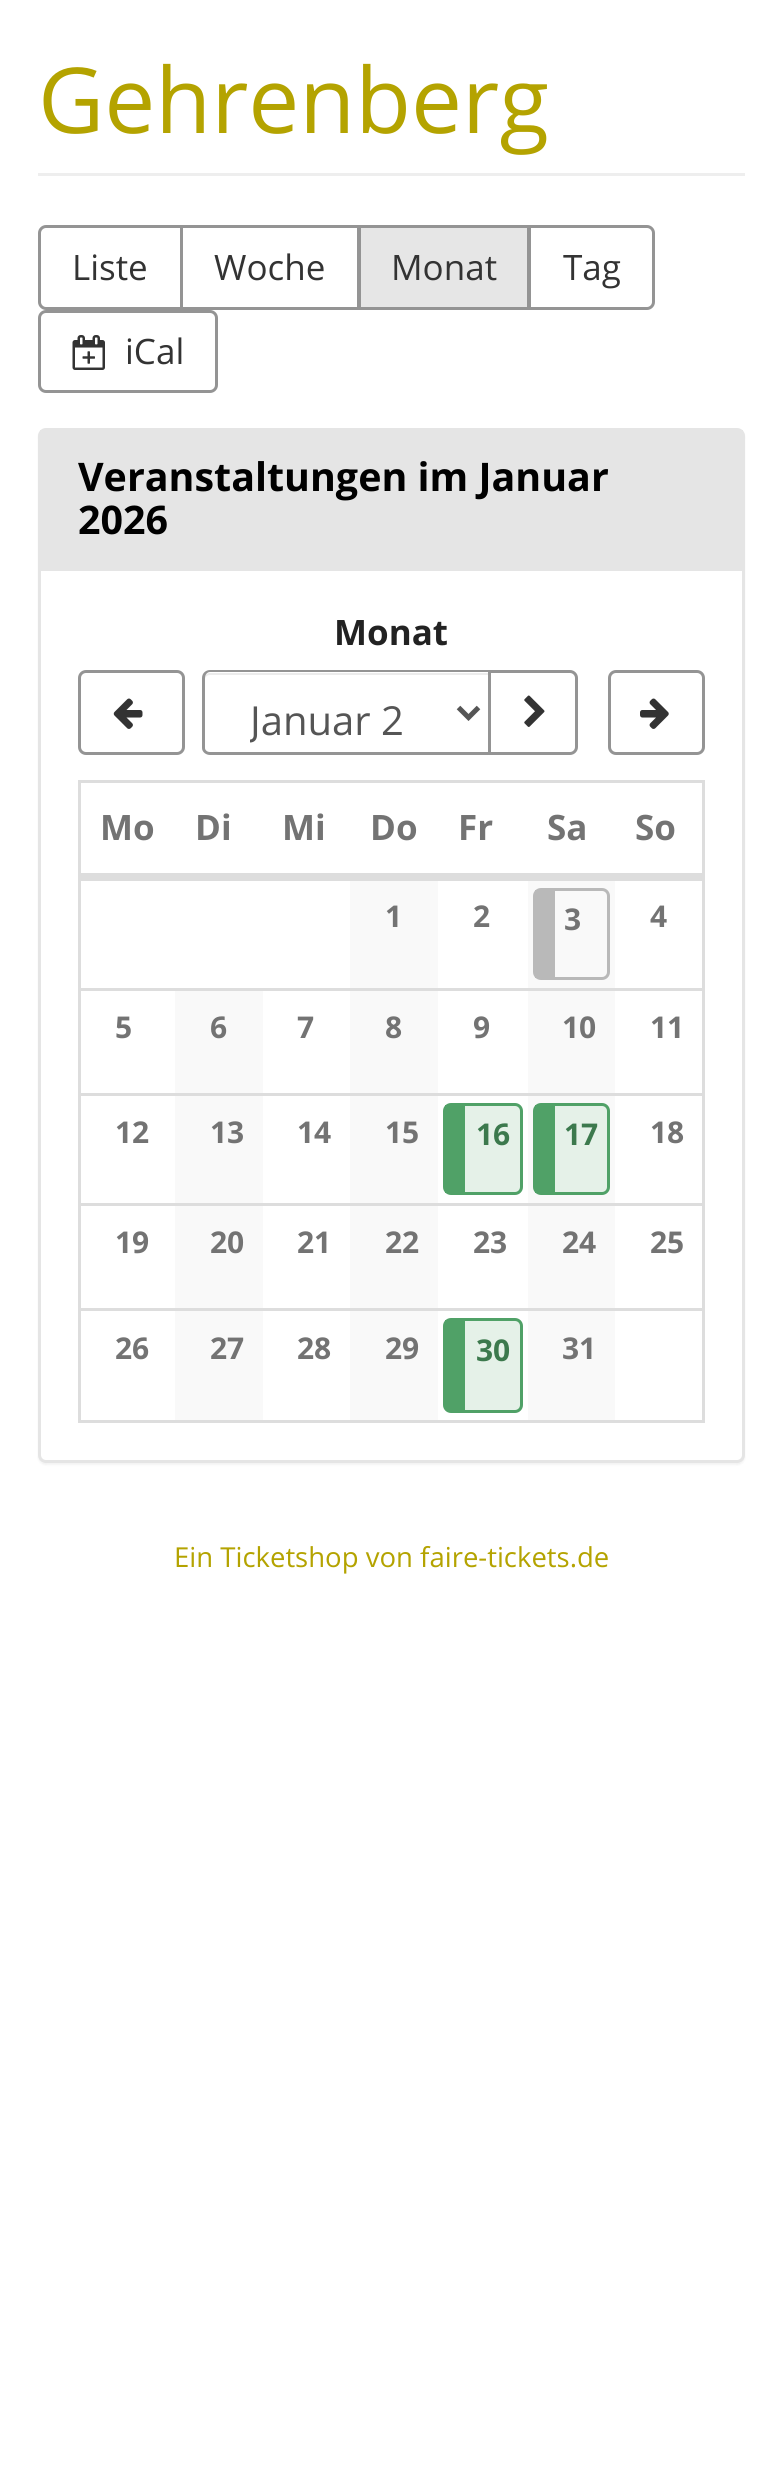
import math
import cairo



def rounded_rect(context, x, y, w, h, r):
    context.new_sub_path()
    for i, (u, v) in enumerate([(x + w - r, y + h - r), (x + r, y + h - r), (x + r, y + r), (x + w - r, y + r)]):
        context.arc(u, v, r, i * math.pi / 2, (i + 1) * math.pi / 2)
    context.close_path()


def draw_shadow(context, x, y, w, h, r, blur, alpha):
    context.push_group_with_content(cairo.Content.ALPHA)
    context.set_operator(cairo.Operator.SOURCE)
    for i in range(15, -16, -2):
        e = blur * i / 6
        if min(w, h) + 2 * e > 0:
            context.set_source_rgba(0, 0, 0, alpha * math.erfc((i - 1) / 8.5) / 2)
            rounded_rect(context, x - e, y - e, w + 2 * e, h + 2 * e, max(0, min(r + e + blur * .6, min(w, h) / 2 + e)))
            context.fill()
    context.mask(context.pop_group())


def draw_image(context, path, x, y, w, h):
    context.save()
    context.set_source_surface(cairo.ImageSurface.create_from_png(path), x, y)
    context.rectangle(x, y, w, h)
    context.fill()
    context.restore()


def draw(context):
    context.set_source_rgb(1, 1, 1)
    context.paint()
    context.set_source_rgb(238 / 255, 238 / 255, 238 / 255)
    context.rectangle(38, 173, 707, 3)
    context.fill()
    context.new_path()
    context.move_to(46, 226.5)
    context.line_to(181.5, 226.5)
    context.line_to(181.5, 308.5)
    context.line_to(46, 308.5)
    context.curve_to(42.5, 308.5, 39.5, 305.5, 39.5, 302)
    context.line_to(39.5, 233)
    context.curve_to(39.5, 229.5, 42.5, 226.5, 46, 226.5)
    context.close_path()
    context.set_source_rgb(148 / 255, 148 / 255, 148 / 255)
    context.set_line_width(3)
    context.stroke()
    context.rectangle(181.5, 226.5, 177, 82)
    context.stroke()
    context.new_path()
    context.move_to(529.5, 226.5)
    context.line_to(647, 226.5)
    context.curve_to(650.5, 226.5, 653.5, 229.5, 653.5, 233)
    context.line_to(653.5, 302)
    context.curve_to(653.5, 305.5, 650.5, 308.5, 647, 308.5)
    context.line_to(529.5, 308.5)
    context.close_path()
    context.stroke()
    context.set_source_rgb(230 / 255, 230 / 255, 230 / 255)
    context.rectangle(359.5, 226.5, 169, 82)
    context.fill_preserve()
    context.set_source_rgb(148 / 255, 148 / 255, 148 / 255)
    context.stroke()
    rounded_rect(context, 39.5, 311.5, 177, 80, 6.5)
    context.stroke()
    draw_image(context, "images/1.png", 72, 335, 33, 35)
    context.set_source_rgb(0, 0, 0)
    draw_shadow(context, 38, 430, 707, 1035, 8, 1, 0.05)
    context.set_source_rgb(1, 1, 1)
    rounded_rect(context, 39.5, 429.5, 704, 1032, 6.5)
    context.fill_preserve()
    context.set_source_rgb(229 / 255, 229 / 255, 229 / 255)
    context.stroke()
    context.rectangle(40, 430, 703, 141)
    context.fill()
    rounded_rect(context, 79.5, 671.5, 104, 82, 6.5)
    context.set_source_rgb(148 / 255, 148 / 255, 148 / 255)
    context.stroke()
    draw_image(context, "images/2.png", 113, 698, 30, 31)
    context.set_source_rgb(236 / 255, 236 / 255, 236 / 255)
    context.new_path()
    context.move_to(210, 675)
    context.line_to(488, 675)
    context.line_to(488, 673)
    context.line_to(209, 673)
    context.curve_to(205, 674, 205, 677, 205, 680)
    context.curve_to(205, 677, 207, 675, 210, 675)
    context.close_path()
    context.fill()
    context.set_source_rgb(148 / 255, 148 / 255, 148 / 255)
    context.set_fill_rule(cairo.FillRule.EVEN_ODD)
    context.new_path()
    context.move_to(210, 670)
    context.line_to(488, 670)
    context.line_to(488, 755)
    context.line_to(210, 755)
    context.curve_to(206, 755, 202, 752, 202, 748)
    context.line_to(202, 678)
    context.curve_to(202, 673, 206, 670, 210, 670)
    context.close_path()
    context.move_to(210, 672)
    context.line_to(488, 672)
    context.line_to(488, 752)
    context.line_to(210, 752)
    context.curve_to(207, 752, 205, 750, 205, 748)
    context.line_to(205, 678)
    context.curve_to(205, 675, 207, 672, 210, 672)
    context.close_path()
    context.fill()
    context.new_path()
    context.move_to(458.5, 707.5)
    context.line_to(468.5, 717.5)
    context.line_to(478.5, 707.5)
    context.set_source_rgb(85 / 255, 85 / 255, 85 / 255)
    context.set_line_width(5)
    context.stroke()
    context.new_path()
    context.move_to(489.5, 671.5)
    context.line_to(570, 671.5)
    context.curve_to(573.5, 671.5, 576.5, 674.5, 576.5, 678)
    context.line_to(576.5, 747)
    context.curve_to(576.5, 750.5, 573.5, 753.5, 570, 753.5)
    context.line_to(489.5, 753.5)
    context.close_path()
    context.set_source_rgb(148 / 255, 148 / 255, 148 / 255)
    context.set_line_width(3)
    context.stroke()
    draw_image(context, "images/3.png", 524, 695, 21, 32)
    rounded_rect(context, 609.5, 671.5, 94, 82, 6.5)
    context.stroke()
    draw_image(context, "images/4.png", 640, 698, 29, 31)
    context.rectangle(79.5, 781.5, 624, 640)
    context.set_source_rgb(221 / 255, 221 / 255, 221 / 255)
    context.stroke()
    context.rectangle(80, 873, 623, 5)
    context.fill()
    context.set_source_rgb(249 / 255, 249 / 255, 249 / 255)
    context.rectangle(350, 881, 88, 107)
    context.fill()
    context.rectangle(528, 881, 87, 107)
    context.fill()
    rounded_rect(context, 534.5, 889.5, 74, 89, 6.5)
    context.set_source_rgb(185 / 255, 185 / 255, 185 / 255)
    context.stroke()
    context.rectangle(535, 890, 20, 88)
    context.fill()
    context.set_source_rgb(221 / 255, 221 / 255, 221 / 255)
    context.rectangle(80, 878, 623, 3)
    context.fill()
    context.set_source_rgb(249 / 255, 249 / 255, 249 / 255)
    context.rectangle(175, 991, 88, 102)
    context.fill()
    context.rectangle(350, 991, 88, 102)
    context.fill()
    context.rectangle(528, 991, 87, 102)
    context.fill()
    context.set_source_rgb(221 / 255, 221 / 255, 221 / 255)
    context.rectangle(80, 988, 623, 3)
    context.fill()
    context.set_source_rgb(249 / 255, 249 / 255, 249 / 255)
    context.rectangle(175, 1096, 88, 107)
    context.fill()
    context.rectangle(350, 1096, 88, 107)
    context.fill()
    context.set_source_rgb(229 / 255, 241 / 255, 232 / 255)
    rounded_rect(context, 444.5, 1104.5, 77, 89, 6.5)
    context.fill_preserve()
    context.set_source_rgb(80 / 255, 161 / 255, 103 / 255)
    context.stroke()
    context.rectangle(445, 1105, 20, 88)
    context.fill()
    context.set_source_rgb(249 / 255, 249 / 255, 249 / 255)
    context.rectangle(528, 1096, 87, 107)
    context.fill()
    context.set_source_rgb(229 / 255, 241 / 255, 232 / 255)
    rounded_rect(context, 534.5, 1104.5, 74, 89, 6.5)
    context.fill_preserve()
    context.set_source_rgb(80 / 255, 161 / 255, 103 / 255)
    context.stroke()
    context.rectangle(535, 1105, 20, 88)
    context.fill()
    context.set_source_rgb(221 / 255, 221 / 255, 221 / 255)
    context.rectangle(80, 1093, 623, 3)
    context.fill()
    context.set_source_rgb(249 / 255, 249 / 255, 249 / 255)
    context.rectangle(175, 1206, 88, 102)
    context.fill()
    context.rectangle(350, 1206, 88, 102)
    context.fill()
    context.rectangle(528, 1206, 87, 102)
    context.fill()
    context.set_source_rgb(221 / 255, 221 / 255, 221 / 255)
    context.rectangle(80, 1203, 623, 3)
    context.fill()
    context.rectangle(80, 1308, 623, 3)
    context.fill()
    context.set_source_rgb(249 / 255, 249 / 255, 249 / 255)
    context.rectangle(175, 1311, 88, 109)
    context.fill()
    context.rectangle(350, 1311, 88, 109)
    context.fill()
    context.set_source_rgb(229 / 255, 241 / 255, 232 / 255)
    rounded_rect(context, 444.5, 1319.5, 77, 92, 6.5)
    context.fill_preserve()
    context.set_source_rgb(80 / 255, 161 / 255, 103 / 255)
    context.stroke()
    context.rectangle(445, 1320, 20, 90)
    context.fill()
    context.set_source_rgb(249 / 255, 249 / 255, 249 / 255)
    context.rectangle(528, 1311, 87, 109)
    context.fill()
    context.select_font_face("Open Sans")
    context.set_font_size(91)
    context.set_source_rgb(180 / 255, 163 / 255, 0)
    context.move_to(38, 133)
    context.show_text("Gehrenberg")
    context.set_font_size(35)
    context.set_source_rgb(51 / 255, 51 / 255, 51 / 255)
    context.move_to(72, 280)
    context.show_text("Liste")
    context.move_to(214, 280)
    context.show_text("Woche")
    context.move_to(391, 280)
    context.show_text("Monat")
    context.move_to(563, 280)
    context.show_text("Tag")
    context.move_to(125, 364)
    context.show_text("iCal")
    context.select_font_face("Open Sans", cairo.FontSlant.NORMAL, cairo.FontWeight.BOLD)
    context.set_font_size(39.4)
    context.set_source_rgb(0, 0, 0)
    context.move_to(78, 491)
    context.show_text("Veranstaltungen im Januar")
    context.move_to(78, 534)
    context.show_text("2026")
    context.set_font_size(35)
    context.set_source_rgb(34 / 255, 34 / 255, 34 / 255)
    context.move_to(334, 645)
    context.show_text("Monat")
    context.save()
    context.set_fill_rule(cairo.FillRule.WINDING)
    context.rectangle(250, 690, 165, 60)
    context.clip()
    context.select_font_face("Open Sans")
    context.set_font_size(40)
    context.set_source_rgb(85 / 255, 85 / 255, 85 / 255)
    context.move_to(250, 735)
    context.show_text("Januar 2")
    context.restore()
    context.set_source_rgb(115 / 255, 115 / 255, 115 / 255)
    context.move_to(100, 840)
    context.show_text("Mo")
    context.move_to(195, 840)
    context.show_text("Di")
    context.move_to(282, 840)
    context.show_text("Mi")
    context.move_to(370, 840)
    context.show_text("Do")
    context.move_to(458, 840)
    context.show_text("Fr")
    context.move_to(547, 840)
    context.show_text("Sa")
    context.move_to(635, 840)
    context.show_text("So")
    context.set_font_size(30)
    context.move_to(385, 927)
    context.show_text("1")
    context.move_to(473, 927)
    context.show_text("2")
    context.move_to(564, 930)
    context.show_text("3")
    context.move_to(650, 927)
    context.show_text("4")
    context.move_to(115, 1038)
    context.show_text("5")
    context.move_to(210, 1038)
    context.show_text("6")
    context.move_to(297, 1038)
    context.show_text("7")
    context.move_to(385, 1038)
    context.show_text("8")
    context.move_to(473, 1038)
    context.show_text("9")
    context.move_to(562, 1038)
    context.show_text("10")
    context.move_to(650, 1038)
    context.show_text("11")
    context.move_to(115, 1143)
    context.show_text("12")
    context.move_to(210, 1143)
    context.show_text("13")
    context.move_to(297, 1143)
    context.show_text("14")
    context.move_to(385, 1143)
    context.show_text("15")
    context.set_source_rgb(60 / 255, 121 / 255, 77 / 255)
    context.move_to(476, 1145)
    context.show_text("16")
    context.move_to(564, 1145)
    context.show_text("17")
    context.set_source_rgb(115 / 255, 115 / 255, 115 / 255)
    context.move_to(650, 1143)
    context.show_text("18")
    context.move_to(115, 1253)
    context.show_text("19")
    context.move_to(210, 1253)
    context.show_text("20")
    context.move_to(297, 1253)
    context.show_text("21")
    context.move_to(385, 1253)
    context.show_text("22")
    context.move_to(473, 1253)
    context.show_text("23")
    context.move_to(562, 1253)
    context.show_text("24")
    context.move_to(650, 1253)
    context.show_text("25")
    context.move_to(115, 1359)
    context.show_text("26")
    context.move_to(210, 1359)
    context.show_text("27")
    context.move_to(297, 1359)
    context.show_text("28")
    context.move_to(385, 1359)
    context.show_text("29")
    context.set_source_rgb(60 / 255, 121 / 255, 77 / 255)
    context.move_to(476, 1361)
    context.show_text("30")
    context.set_source_rgb(115 / 255, 115 / 255, 115 / 255)
    context.move_to(562, 1359)
    context.show_text("31")
    context.select_font_face("Open Sans")
    context.set_font_size(27.5)
    context.set_source_rgb(180 / 255, 163 / 255, 0)
    context.move_to(174, 1567)
    context.show_text("Ein Ticketshop von faire-tickets.de")


surface = cairo.ImageSurface(cairo.Format.RGB24, 782, 2467)
context = cairo.Context(surface)
options = cairo.FontOptions()
options.set_hint_metrics(cairo.HintMetrics.OFF)
options.set_hint_style(cairo.HintStyle.NONE)
context.set_font_options(options)
context.set_miter_limit(4)
draw(context)
surface.write_to_png("out.png")
